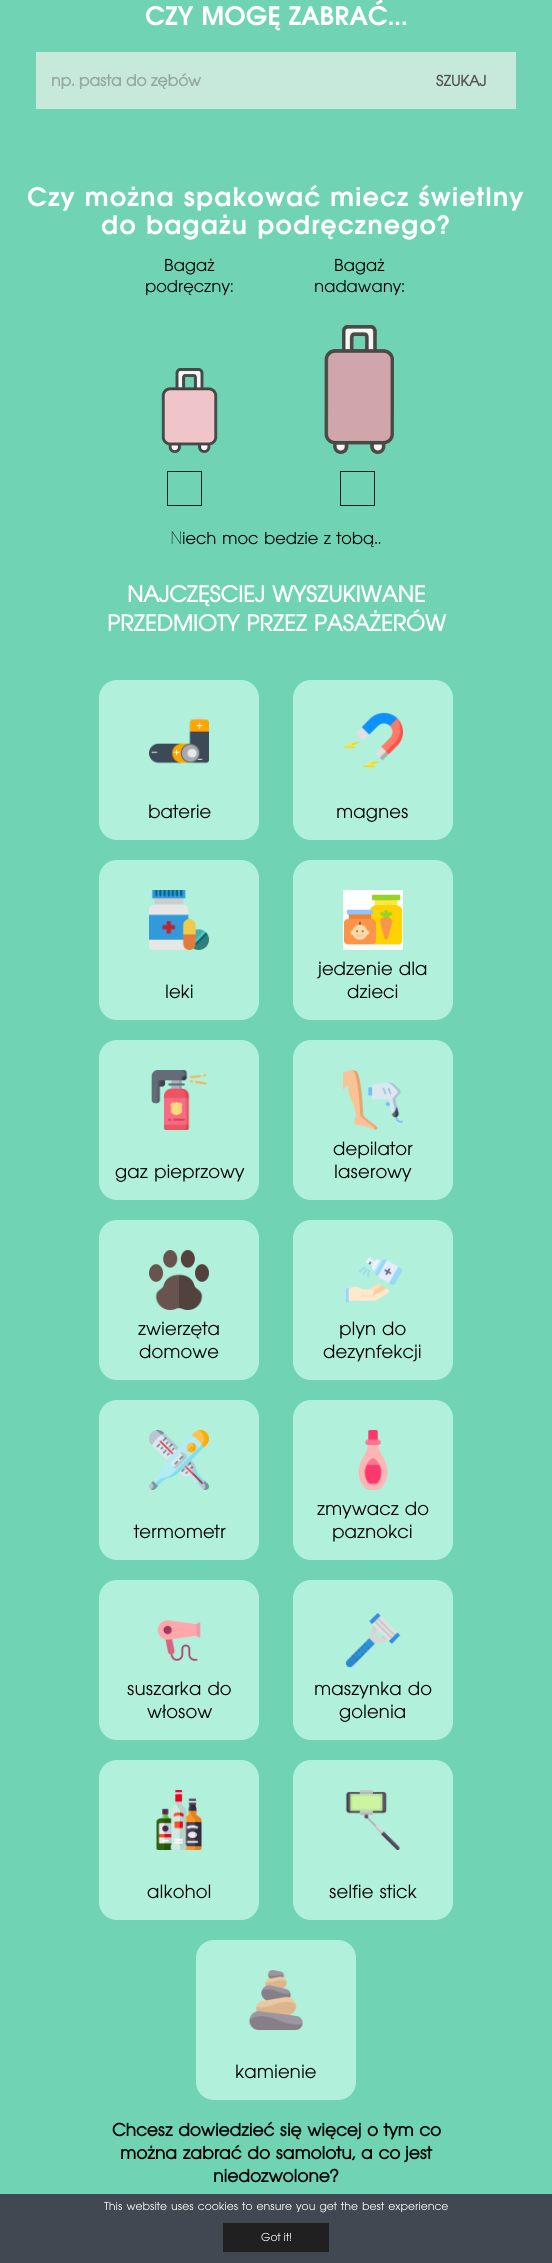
import math
import cairo



def draw_spaced(context, x, y, s, letter, word):
    context.move_to(x, y)
    for ch in s:
        context.show_text(ch)
        context.rel_move_to(letter + word * (ch == ' '), 0)


def rounded_rect(context, x, y, w, h, r):
    context.new_sub_path()
    for i, (u, v) in enumerate([(x + w - r, y + h - r), (x + r, y + h - r), (x + r, y + r), (x + w - r, y + r)]):
        context.arc(u, v, r, i * math.pi / 2, (i + 1) * math.pi / 2)
    context.close_path()


def draw_image(context, path, x, y, w, h):
    context.save()
    context.set_source_surface(cairo.ImageSurface.create_from_png(path), x, y)
    context.rectangle(x, y, w, h)
    context.fill()
    context.restore()


def draw(context):
    context.set_source_rgb(112 / 255, 212 / 255, 180 / 255)
    context.paint()
    context.set_source_rgb(198 / 255, 233 / 255, 220 / 255)
    context.rectangle(36, 52, 480, 57)
    context.fill()
    draw_image(context, "images/1.png", 161, 368, 57, 85)
    draw_image(context, "images/2.png", 324, 325, 70, 129)
    context.rectangle(167.5, 471.5, 34, 34)
    context.set_source_rgb(27 / 255, 27 / 255, 27 / 255)
    context.set_line_width(1)
    context.stroke()
    context.rectangle(340.5, 471.5, 34, 34)
    context.stroke()
    context.set_source_rgb(177 / 255, 241 / 255, 220 / 255)
    rounded_rect(context, 99, 680, 160, 160, 18)
    context.fill()
    draw_image(context, "images/3.png", 149, 717, 60, 47)
    rounded_rect(context, 293, 680, 160, 160, 18)
    context.fill()
    draw_image(context, "images/4.png", 343, 712, 60, 56)
    rounded_rect(context, 99, 860, 160, 160, 18)
    context.fill()
    draw_image(context, "images/5.png", 149, 890, 60, 60)
    rounded_rect(context, 293, 860, 160, 160, 18)
    context.fill()
    draw_image(context, "images/6.png", 343, 890, 60, 60)
    rounded_rect(context, 99, 1040, 160, 160, 18)
    context.fill()
    draw_image(context, "images/7.png", 151, 1070, 56, 60)
    rounded_rect(context, 293, 1040, 160, 160, 18)
    context.fill()
    draw_image(context, "images/8.png", 343, 1070, 60, 60)
    rounded_rect(context, 99, 1220, 160, 160, 18)
    context.fill()
    draw_image(context, "images/9.png", 149, 1250, 60, 60)
    rounded_rect(context, 293, 1220, 160, 160, 18)
    context.fill()
    draw_image(context, "images/10.png", 344, 1257, 58, 46)
    rounded_rect(context, 99, 1400, 160, 160, 18)
    context.fill()
    draw_image(context, "images/11.png", 149, 1430, 60, 60)
    rounded_rect(context, 293, 1400, 160, 160, 18)
    context.fill()
    draw_image(context, "images/12.png", 358, 1430, 30, 60)
    rounded_rect(context, 99, 1580, 160, 160, 18)
    context.fill()
    draw_image(context, "images/13.png", 157, 1620, 44, 41)
    rounded_rect(context, 293, 1580, 160, 160, 18)
    context.fill()
    draw_image(context, "images/14.png", 345, 1612, 56, 56)
    rounded_rect(context, 99, 1760, 160, 160, 18)
    context.fill()
    draw_image(context, "images/15.png", 156, 1790, 46, 60)
    rounded_rect(context, 293, 1760, 160, 160, 18)
    context.fill()
    draw_image(context, "images/16.png", 345, 1790, 56, 60)
    rounded_rect(context, 196, 1940, 160, 160, 18)
    context.fill()
    draw_image(context, "images/17.png", 248, 1970, 56, 60)
    context.set_source_rgb(66 / 255, 72 / 255, 81 / 255)
    context.rectangle(0, 2194, 552, 69)
    context.fill()
    context.set_source_rgb(32 / 255, 32 / 255, 32 / 255)
    context.rectangle(223, 2223, 106, 29)
    context.fill()
    context.select_font_face("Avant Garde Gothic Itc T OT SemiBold")
    context.set_font_size(28)
    context.set_source_rgb(1, 1, 1)
    draw_spaced(context, 145, 25, "CZY MOGĘ ZABRAĆ...", 0, 1)
    context.select_font_face("Avant Garde Gothic Itc T OT", cairo.FontSlant.NORMAL, cairo.FontWeight.BOLD)
    context.set_font_size(17)
    context.set_source_rgb(149 / 255, 167 / 255, 160 / 255)
    context.move_to(51, 86)
    context.show_text("np. pasta do zębów")
    context.set_font_size(16)
    context.set_source_rgb(85 / 255, 84 / 255, 84 / 255)
    context.move_to(436, 86)
    context.show_text("SZUKAJ")
    context.select_font_face("Avant Garde Gothic Itc T OT SemiBold")
    context.set_font_size(28)
    context.set_source_rgb(1, 1, 1)
    draw_spaced(context, 27, 206, "Czy można spakować miecz świetlny", 1, 1)
    draw_spaced(context, 101, 234, "do bagażu podręcznego?", 1, 1)
    context.select_font_face("Avant Garde Gothic Itc T OT")
    context.set_font_size(18)
    context.set_source_rgb(0, 0, 0)
    context.move_to(164, 271)
    context.show_text("Bagaż")
    context.move_to(145, 292)
    context.show_text("podręczny:")
    context.move_to(334, 271)
    context.show_text("Bagaż")
    context.move_to(314, 292)
    context.show_text("nadawany:")
    context.select_font_face("Noto Sans Thin")
    context.move_to(170, 544)
    context.show_text("N")
    context.select_font_face("Avant Garde Gothic Itc T OT")
    draw_spaced(context, 182, 544, "iech moc bedzie z tobą..", 0, 1)
    context.select_font_face("Avant Garde Gothic Itc T OT", cairo.FontSlant.NORMAL, cairo.FontWeight.BOLD)
    context.set_font_size(24)
    context.set_source_rgb(1, 1, 1)
    draw_spaced(context, 127, 602, "NAJCZĘSCIEJ WYSZUKIWANE", 0, 1)
    draw_spaced(context, 107, 631, "PRZEDMIOTY PRZEZ PASAŻERÓW", 0, 1)
    context.select_font_face("Avant Garde Gothic Itc T OT")
    context.set_font_size(20)
    context.set_source_rgb(0, 0, 0)
    context.move_to(148, 818)
    context.show_text("baterie")
    context.move_to(336, 818)
    context.show_text("magnes")
    context.move_to(165, 998)
    context.show_text("leki")
    draw_spaced(context, 318, 975, "jedzenie dla", 0, 1)
    context.move_to(347, 998)
    context.show_text("dzieci")
    draw_spaced(context, 115, 1178, "gaz pieprzowy", 0, 1)
    context.move_to(333, 1155)
    context.show_text("depilator")
    context.move_to(334, 1178)
    context.show_text("laserowy")
    context.move_to(138, 1335)
    context.show_text("zwierzęta")
    context.move_to(139, 1358)
    context.show_text("domowe")
    draw_spaced(context, 339, 1335, "plyn do", 0, 1)
    context.move_to(323, 1358)
    context.show_text("dezynfekcji")
    context.move_to(134, 1538)
    context.show_text("termometr")
    draw_spaced(context, 317, 1515, "zmywacz do", 0, 1)
    context.move_to(332, 1538)
    context.show_text("paznokci")
    draw_spaced(context, 127, 1695, "suszarka do", 0, 1)
    context.move_to(147, 1718)
    context.show_text("włosow")
    draw_spaced(context, 314, 1695, "maszynka do", 0, 1)
    context.move_to(339, 1718)
    context.show_text("golenia")
    context.move_to(147, 1898)
    context.show_text("alkohol")
    draw_spaced(context, 329, 1898, "selfie stick", 0, 1)
    context.move_to(235, 2078)
    context.show_text("kamienie")
    context.select_font_face("Avant Garde Gothic Itc T OT", cairo.FontSlant.NORMAL, cairo.FontWeight.BOLD)
    context.set_font_size(18.75)
    draw_spaced(context, 112, 2136, "Chcesz dowiedzieć się więcej o tym co", 0, 1)
    draw_spaced(context, 120, 2159, "można zabrać do samolotu, a co", 0, 1)
    context.move_to(405, 2159)
    context.show_text("jest")
    context.move_to(213, 2182)
    context.show_text("niedozwolone?")
    context.select_font_face("Avant Garde Gothic Itc T OT")
    context.set_font_size(12)
    context.set_source_rgb(1, 1, 1)
    draw_spaced(context, 104, 2210, "This website uses cookies to ensure you get the best experience", 0, 1)
    context.move_to(261, 2241)
    context.show_text("Got it!")


surface = cairo.ImageSurface(cairo.Format.RGB24, 552, 2263)
context = cairo.Context(surface)
options = cairo.FontOptions()
options.set_hint_metrics(cairo.HintMetrics.OFF)
options.set_hint_style(cairo.HintStyle.NONE)
context.set_font_options(options)
context.set_miter_limit(4)
draw(context)
surface.write_to_png("out.png")
